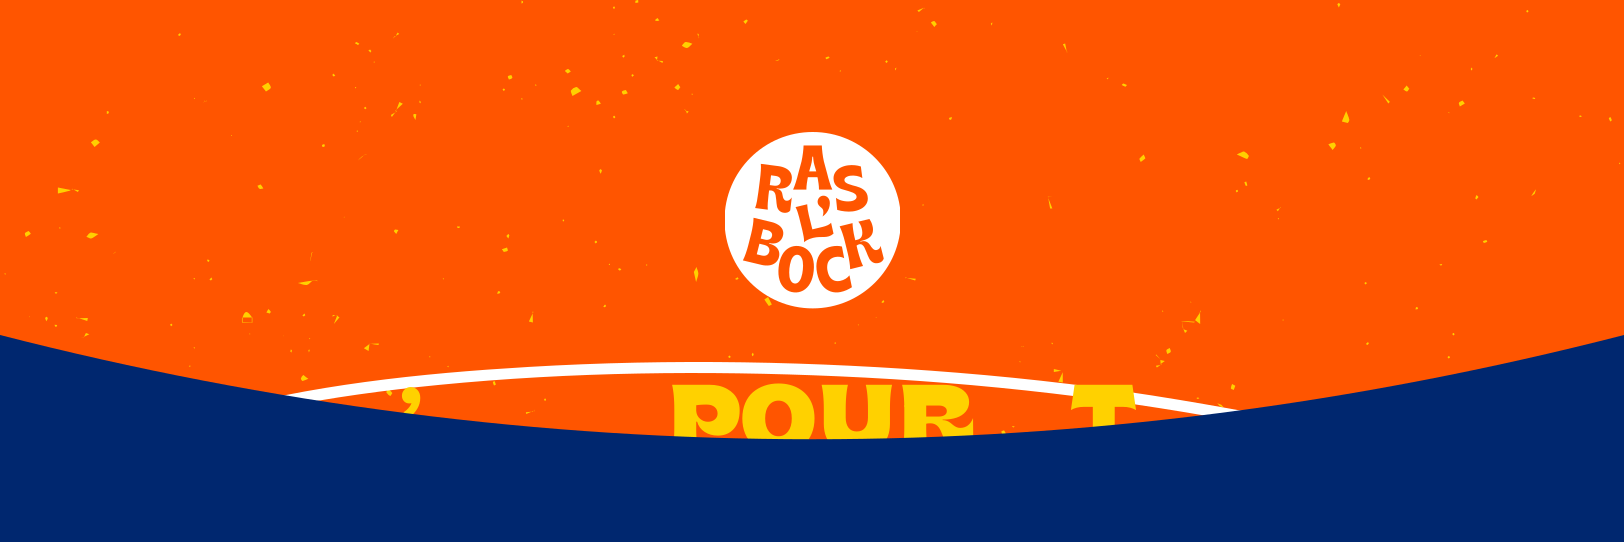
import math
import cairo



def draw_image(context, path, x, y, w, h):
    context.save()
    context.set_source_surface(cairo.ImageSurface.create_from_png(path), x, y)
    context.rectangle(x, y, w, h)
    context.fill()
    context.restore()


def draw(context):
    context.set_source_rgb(1, 85 / 255, 0)
    context.paint()
    draw_image(context, "images/1.png", 4, 0, 1617, 434)
    draw_image(context, "images/2.png", 725, 132, 175, 177)
    draw_image(context, "images/3.png", 283, 362, 960, 54)
    context.select_font_face("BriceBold", cairo.FontSlant.NORMAL, cairo.FontWeight.BOLD)
    context.set_font_size(96)
    context.set_source_rgb(1, 209 / 255, 0)
    context.move_to(398, 452)
    context.show_text("’")
    context.move_to(667, 452)
    context.show_text("POUR")
    context.move_to(1069, 452)
    context.show_text("T")
    context.set_source_rgb(0, 39 / 255, 111 / 255)
    context.new_path()
    context.move_to(0, 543)
    context.line_to(0, 335)
    context.curve_to(542, 474, 1083, 474, 1624, 335)
    context.line_to(1624, 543)
    context.close_path()
    context.fill()


surface = cairo.ImageSurface(cairo.Format.RGB24, 1624, 542)
context = cairo.Context(surface)
options = cairo.FontOptions()
options.set_hint_metrics(cairo.HintMetrics.OFF)
options.set_hint_style(cairo.HintStyle.NONE)
context.set_font_options(options)
context.set_miter_limit(4)
draw(context)
surface.write_to_png("out.png")
